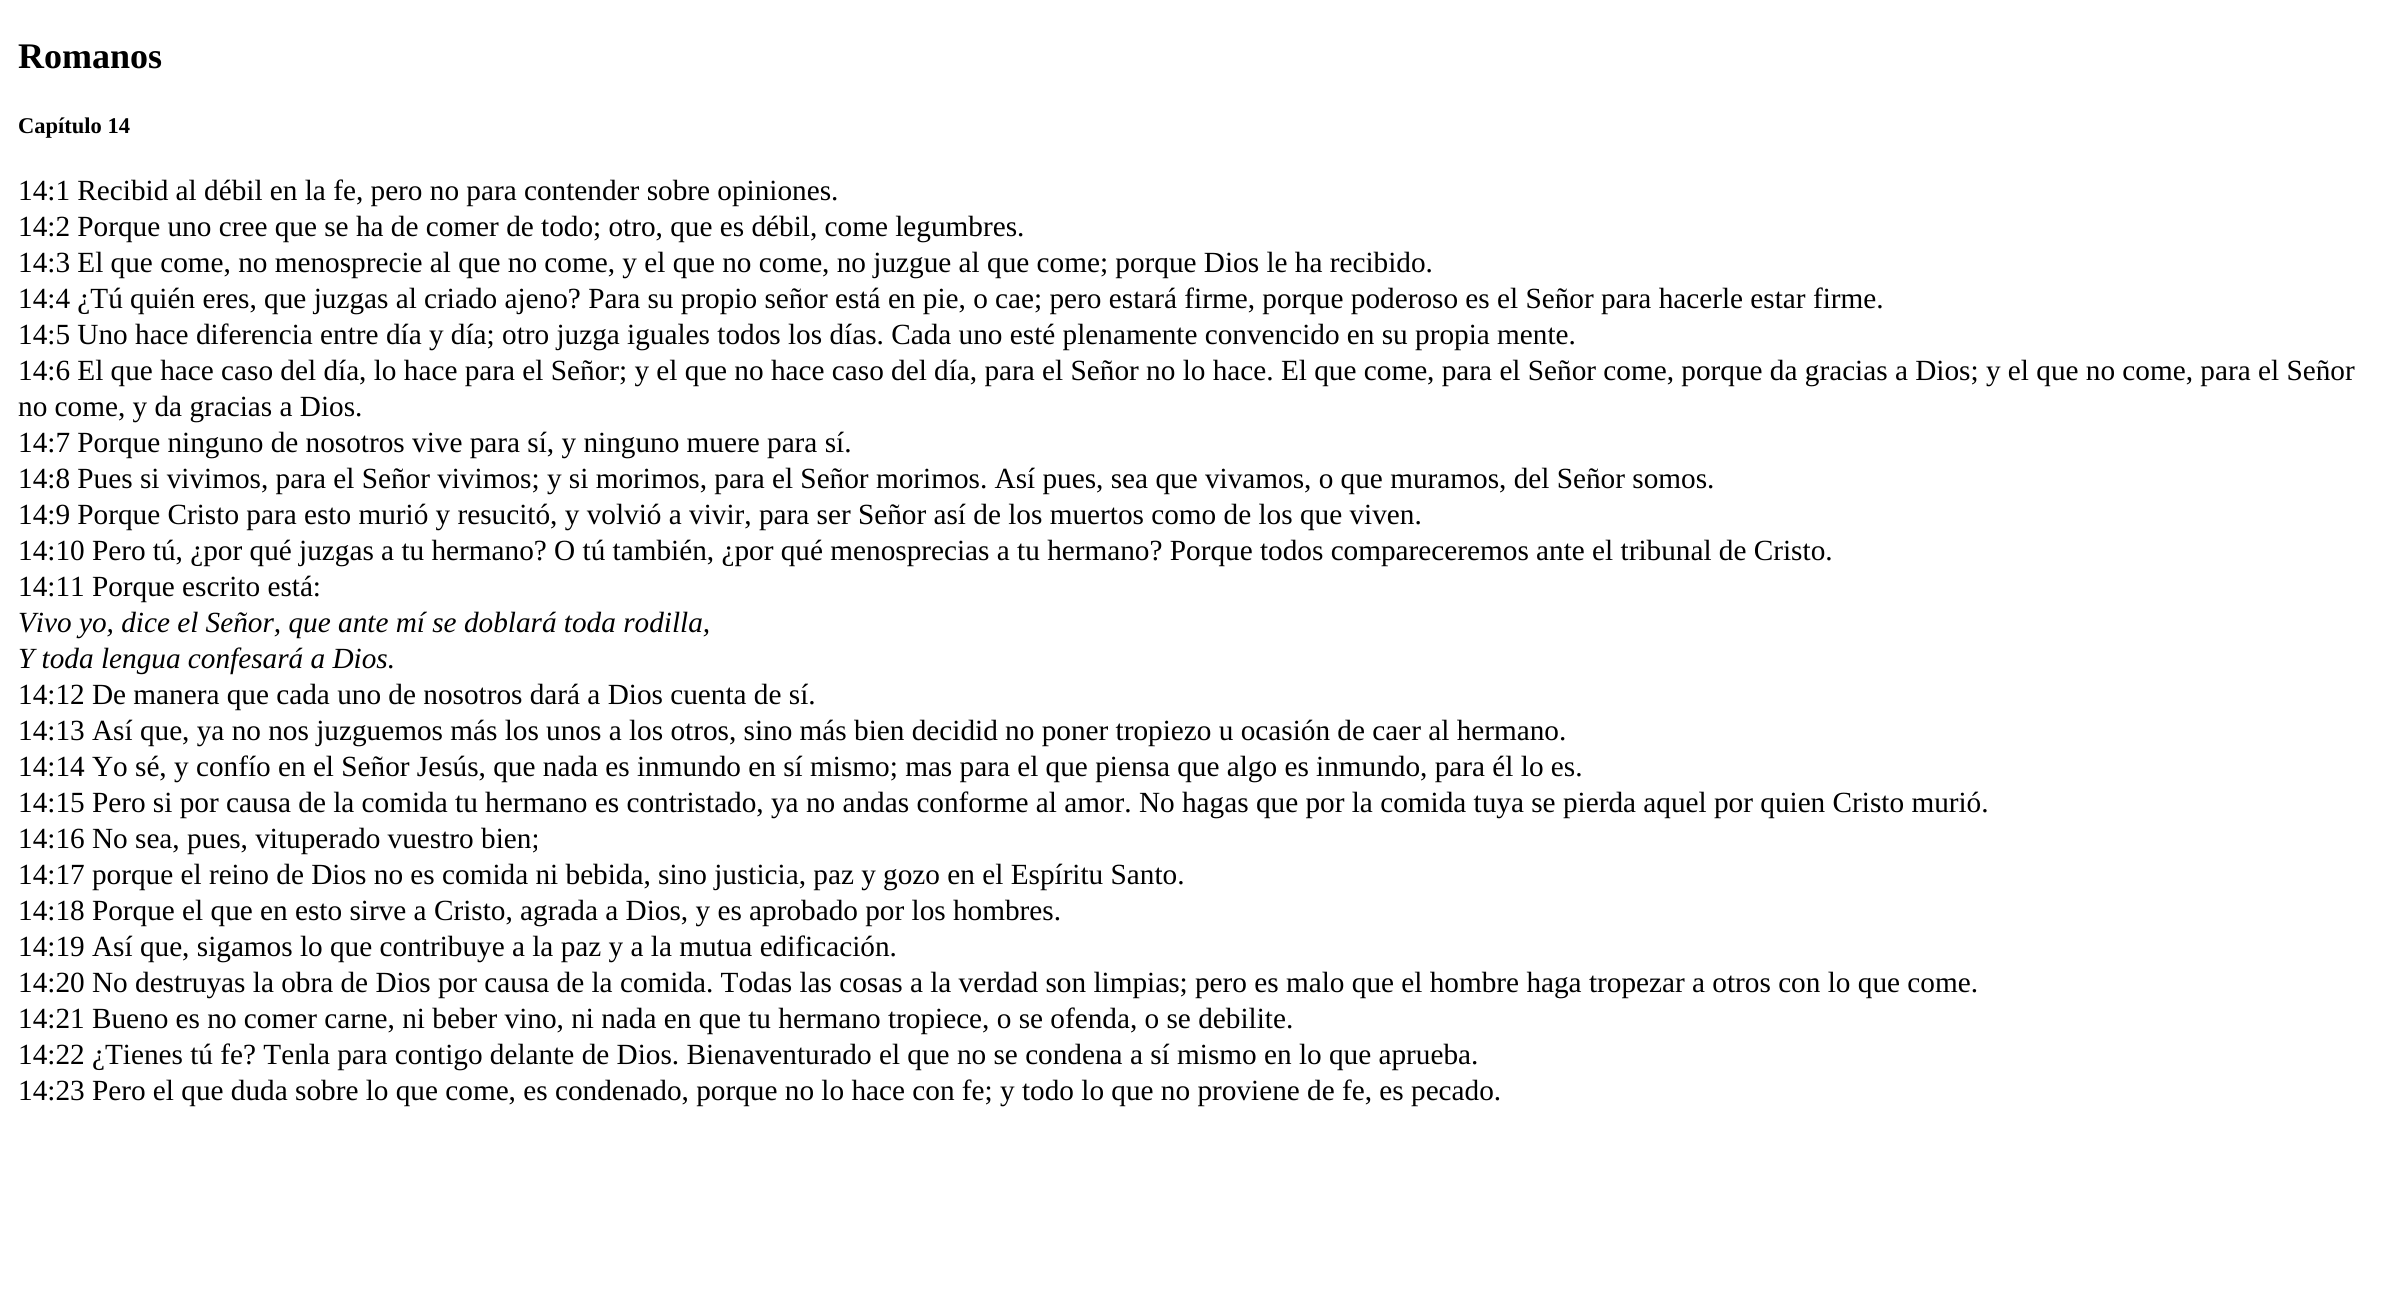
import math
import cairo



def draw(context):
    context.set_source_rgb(1, 1, 1)
    context.paint()
    context.select_font_face("Liberation Serif", cairo.FontSlant.NORMAL, cairo.FontWeight.BOLD)
    context.set_font_size(36)
    context.set_source_rgb(0, 0, 0)
    context.move_to(18, 68)
    context.show_text("Romanos")
    context.set_font_size(22.5)
    context.move_to(18, 133)
    context.show_text("Capítulo 14")
    context.select_font_face("Liberation Serif")
    context.set_font_size(29.25)
    context.move_to(18, 200)
    context.show_text("14:1 Recibid al débil en la fe, pero no para contender sobre opiniones.")
    context.move_to(18, 236)
    context.show_text("14:2 Porque uno cree que se ha de comer de todo; otro, que es débil, come legumbres.")
    context.move_to(18, 272)
    context.show_text("14:3 El que come, no menosprecie al que no come, y el que no come, no juzgue al que come; porque Dios le ha recibido.")
    context.move_to(18, 308)
    context.show_text("14:4 ¿Tú quién eres, que juzgas al criado ajeno? Para su propio señor está en pie, o cae; pero estará firme, porque poderoso es el Señor para hacerle estar firme.")
    context.move_to(18, 344)
    context.show_text("14:5 Uno hace diferencia entre día y día; otro juzga iguales todos los días. Cada uno esté plenamente convencido en su propia mente.")
    context.move_to(18, 380)
    context.show_text("14:6 El que hace caso del día, lo hace para el Señor; y el que no hace caso del día, para el Señor no lo hace. El que come, para el Señor come, porque da gracias a Dios; y el que no come, para el Señor")
    context.move_to(18, 416)
    context.show_text("no come, y da gracias a Dios.")
    context.move_to(18, 452)
    context.show_text("14:7 Porque ninguno de nosotros vive para sí, y ninguno muere para sí.")
    context.move_to(18, 488)
    context.show_text("14:8 Pues si vivimos, para el Señor vivimos; y si morimos, para el Señor morimos. Así pues, sea que vivamos, o que muramos, del Señor somos.")
    context.move_to(18, 524)
    context.show_text("14:9 Porque Cristo para esto murió y resucitó, y volvió a vivir, para ser Señor así de los muertos como de los que viven.")
    context.move_to(18, 560)
    context.show_text("14:10 Pero tú, ¿por qué juzgas a tu hermano? O tú también, ¿por qué menosprecias a tu hermano? Porque todos compareceremos ante el tribunal de Cristo.")
    context.move_to(18, 596)
    context.show_text("14:11 Porque escrito está:")
    context.select_font_face("Liberation Serif", cairo.FontSlant.ITALIC)
    context.move_to(18, 632)
    context.show_text("Vivo yo, dice el Señor, que ante mí se doblará toda rodilla,")
    context.move_to(18, 668)
    context.show_text("Y toda lengua confesará a Dios.")
    context.select_font_face("Liberation Serif")
    context.move_to(18, 704)
    context.show_text("14:12 De manera que cada uno de nosotros dará a Dios cuenta de sí.")
    context.move_to(18, 740)
    context.show_text("14:13 Así que, ya no nos juzguemos más los unos a los otros, sino más bien decidid no poner tropiezo u ocasión de caer al hermano.")
    context.move_to(18, 776)
    context.show_text("14:14 Yo sé, y confío en el Señor Jesús, que nada es inmundo en sí mismo; mas para el que piensa que algo es inmundo, para él lo es.")
    context.move_to(18, 812)
    context.show_text("14:15 Pero si por causa de la comida tu hermano es contristado, ya no andas conforme al amor. No hagas que por la comida tuya se pierda aquel por quien Cristo murió.")
    context.move_to(18, 848)
    context.show_text("14:16 No sea, pues, vituperado vuestro bien;")
    context.move_to(18, 884)
    context.show_text("14:17 porque el reino de Dios no es comida ni bebida, sino justicia, paz y gozo en el Espíritu Santo.")
    context.move_to(18, 920)
    context.show_text("14:18 Porque el que en esto sirve a Cristo, agrada a Dios, y es aprobado por los hombres.")
    context.move_to(18, 956)
    context.show_text("14:19 Así que, sigamos lo que contribuye a la paz y a la mutua edificación.")
    context.move_to(18, 992)
    context.show_text("14:20 No destruyas la obra de Dios por causa de la comida. Todas las cosas a la verdad son limpias; pero es malo que el hombre haga tropezar a otros con lo que come.")
    context.move_to(18, 1028)
    context.show_text("14:21 Bueno es no comer carne, ni beber vino, ni nada en que tu hermano tropiece, o se ofenda, o se debilite.")
    context.move_to(18, 1064)
    context.show_text("14:22 ¿Tienes tú fe? Tenla para contigo delante de Dios. Bienaventurado el que no se condena a sí mismo en lo que aprueba.")
    context.move_to(18, 1100)
    context.show_text("14:23 Pero el que duda sobre lo que come, es condenado, porque no lo hace con fe; y todo lo que no proviene de fe, es pecado.")


surface = cairo.ImageSurface(cairo.Format.RGB24, 2384, 1294)
context = cairo.Context(surface)
options = cairo.FontOptions()
options.set_hint_metrics(cairo.HintMetrics.OFF)
options.set_hint_style(cairo.HintStyle.NONE)
context.set_font_options(options)
context.set_miter_limit(4)
draw(context)
surface.write_to_png("out.png")
